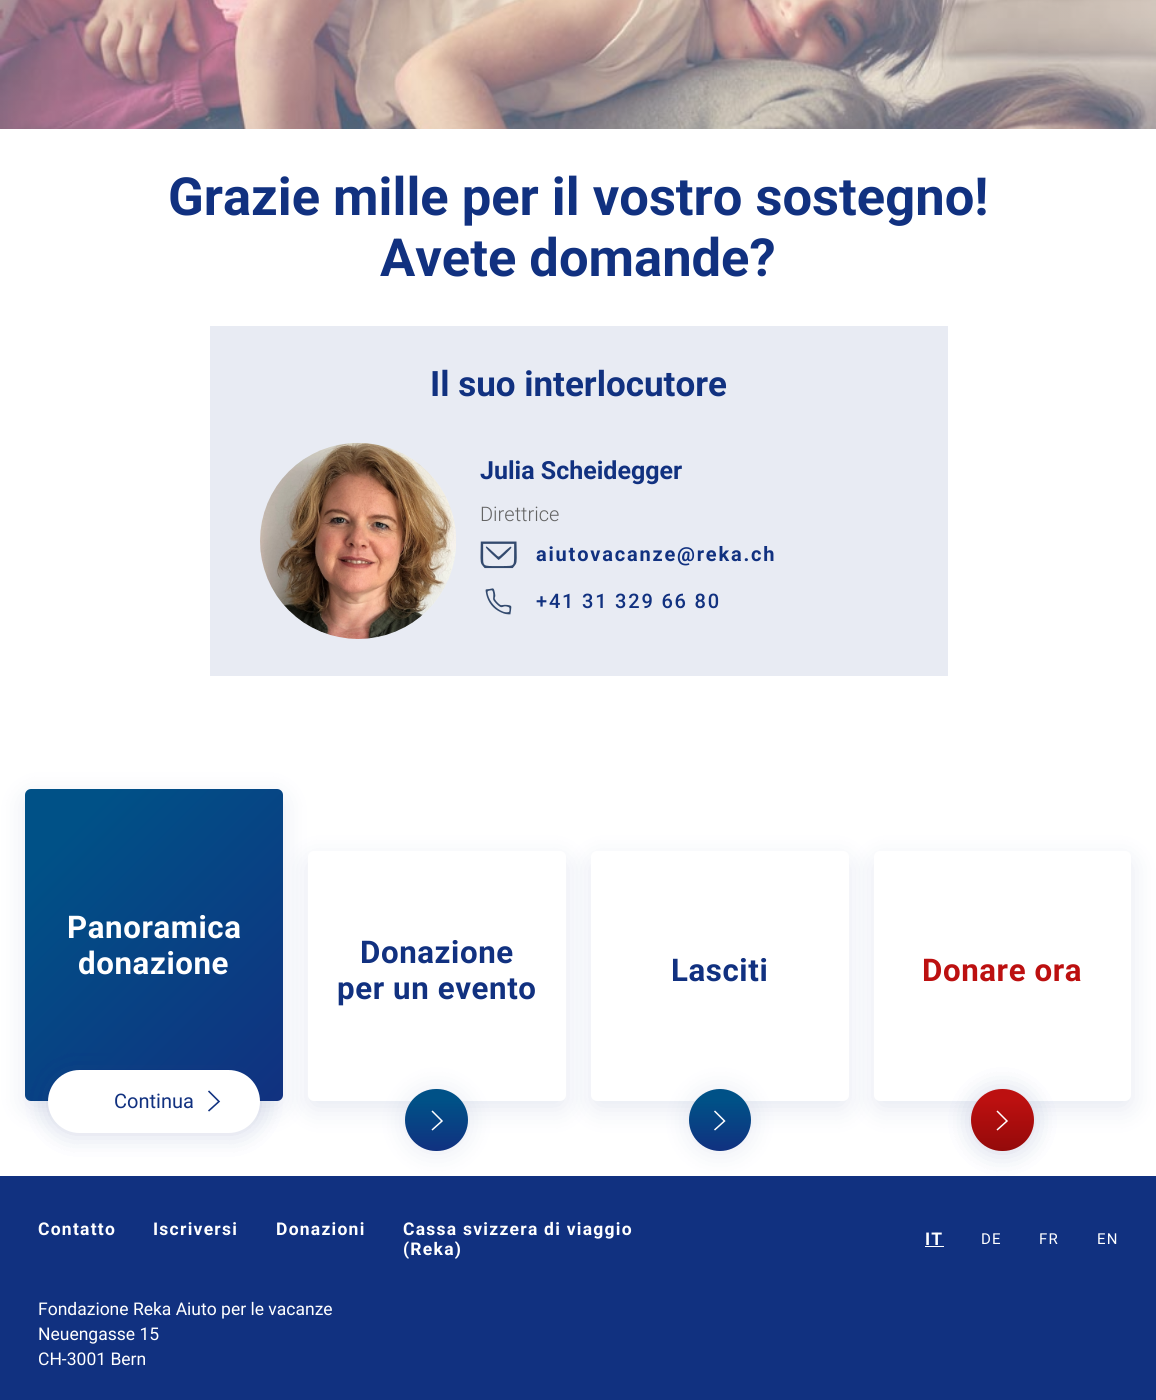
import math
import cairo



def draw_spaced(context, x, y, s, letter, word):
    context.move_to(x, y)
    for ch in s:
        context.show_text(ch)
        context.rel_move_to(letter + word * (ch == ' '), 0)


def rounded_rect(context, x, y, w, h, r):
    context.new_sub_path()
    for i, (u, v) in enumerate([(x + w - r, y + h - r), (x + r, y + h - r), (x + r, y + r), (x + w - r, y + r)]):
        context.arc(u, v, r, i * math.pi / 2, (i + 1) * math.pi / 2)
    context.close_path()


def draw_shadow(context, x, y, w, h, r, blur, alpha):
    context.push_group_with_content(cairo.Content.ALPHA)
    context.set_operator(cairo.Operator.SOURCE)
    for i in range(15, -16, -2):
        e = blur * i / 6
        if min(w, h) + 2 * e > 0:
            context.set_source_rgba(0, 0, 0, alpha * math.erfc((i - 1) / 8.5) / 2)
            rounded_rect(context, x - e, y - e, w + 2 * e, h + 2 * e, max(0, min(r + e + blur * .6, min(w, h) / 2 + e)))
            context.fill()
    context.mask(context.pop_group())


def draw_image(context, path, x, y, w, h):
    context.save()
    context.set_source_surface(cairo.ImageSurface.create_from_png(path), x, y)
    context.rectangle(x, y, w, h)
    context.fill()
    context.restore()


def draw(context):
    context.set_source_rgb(1, 1, 1)
    context.paint()
    draw_image(context, "images/1.png", 0, 0, 1156, 129)
    context.set_source_rgb(232 / 255, 235 / 255, 243 / 255)
    context.rectangle(210, 326, 738, 350)
    context.fill()
    draw_image(context, "images/2.png", 260, 442, 196, 197)
    draw_image(context, "images/3.png", 480, 541, 37, 28)
    draw_image(context, "images/4.png", 485, 588, 27, 27)
    context.set_source_rgb(17 / 255, 49 / 255, 128 / 255)
    draw_shadow(context, 24, 795, 260, 315, 8, 12.5, 0.1)
    gradient = cairo.LinearGradient(11, 803, 296, 1088)
    gradient.add_color_stop_rgba(0, 0, 81 / 255, 135 / 255, 1)
    gradient.add_color_stop_rgba(0.15, 0, 81 / 255, 135 / 255, 1)
    gradient.add_color_stop_rgba(1, 17 / 255, 49 / 255, 128 / 255, 1)
    context.set_source(gradient)
    rounded_rect(context, 25, 789, 258, 312, 6)
    context.fill()
    context.set_source_rgb(17 / 255, 49 / 255, 128 / 255)
    draw_shadow(context, 48, 1071, 212, 63, 31.5, 12.5, 0.1)
    draw_shadow(context, 48, 1071, 212, 63, 31.5, 12.5, 0.1)
    context.set_source_rgb(1, 1, 1)
    rounded_rect(context, 48, 1070, 212, 63, 31.5)
    context.fill()
    context.new_path()
    context.move_to(208.5, 1091)
    context.line_to(219, 1101.5)
    context.line_to(208.5, 1111)
    context.set_source_rgb(16 / 255, 49 / 255, 128 / 255)
    context.set_line_width(1.6)
    context.stroke()
    context.set_source_rgb(17 / 255, 49 / 255, 128 / 255)
    draw_shadow(context, 306, 858, 262, 252, 8, 12.5, 0.1)
    context.set_source_rgb(1, 1, 1)
    rounded_rect(context, 308, 851, 258, 250, 6)
    context.fill()
    context.set_source_rgb(17 / 255, 49 / 255, 128 / 255)
    context.rectangle(0, 1176, 1156, 224)
    context.fill()
    context.set_source_rgb(17 / 255, 49 / 255, 128 / 255)
    draw_shadow(context, 405, 1090, 63, 63, 31.5, 12.5, 0.1)
    gradient = cairo.LinearGradient(436, 1089, 436, 1151)
    gradient.add_color_stop_rgba(0, 0, 81 / 255, 135 / 255, 1)
    gradient.add_color_stop_rgba(0.18, 0, 81 / 255, 135 / 255, 1)
    gradient.add_color_stop_rgba(1, 17 / 255, 49 / 255, 128 / 255, 1)
    context.set_source(gradient)
    rounded_rect(context, 405, 1089, 63, 62, 31)
    context.fill()
    context.new_path()
    context.move_to(432, 1111)
    context.line_to(442, 1121)
    context.line_to(432, 1130)
    context.set_source_rgb(1, 1, 1)
    context.set_line_width(1.5)
    context.stroke()
    context.set_source_rgb(17 / 255, 49 / 255, 128 / 255)
    draw_shadow(context, 590, 858, 260, 252, 8, 12.5, 0.1)
    context.set_source_rgb(1, 1, 1)
    rounded_rect(context, 591, 851, 258, 250, 6)
    context.fill()
    context.set_source_rgb(17 / 255, 49 / 255, 128 / 255)
    draw_shadow(context, 689, 1090, 62, 63, 31, 12.5, 0.1)
    gradient = cairo.LinearGradient(720, 1089, 720, 1151)
    gradient.add_color_stop_rgba(0, 0, 81 / 255, 135 / 255, 1)
    gradient.add_color_stop_rgba(0.18, 0, 81 / 255, 135 / 255, 1)
    gradient.add_color_stop_rgba(1, 17 / 255, 49 / 255, 128 / 255, 1)
    context.set_source(gradient)
    context.arc(720, 1120, 31, 0, 2 * math.pi)
    context.fill()
    context.new_path()
    context.move_to(714.5, 1111)
    context.line_to(724.5, 1121)
    context.line_to(714.5, 1130)
    context.set_source_rgb(1, 1, 1)
    context.stroke()
    context.set_source_rgb(17 / 255, 49 / 255, 128 / 255)
    draw_shadow(context, 873, 858, 260, 252, 8, 12.5, 0.1)
    context.set_source_rgb(1, 1, 1)
    rounded_rect(context, 874, 851, 257, 250, 6)
    context.fill()
    context.set_source_rgb(17 / 255, 49 / 255, 128 / 255)
    draw_shadow(context, 971, 1090, 63, 63, 31.5, 12.5, 0.1)
    draw_shadow(context, 971, 1090, 63, 63, 31.5, 12.5, 0.1)
    gradient = cairo.LinearGradient(1003, 1089, 1003, 1151)
    gradient.add_color_stop_rgba(0, 188 / 255, 16 / 255, 16 / 255, 1)
    gradient.add_color_stop_rgba(0.18, 188 / 255, 16 / 255, 16 / 255, 1)
    gradient.add_color_stop_rgba(1, 148 / 255, 10 / 255, 10 / 255, 1)
    context.set_source(gradient)
    rounded_rect(context, 971, 1089, 63, 62, 31)
    context.fill()
    context.new_path()
    context.move_to(997, 1111)
    context.line_to(1007, 1121)
    context.line_to(997, 1130)
    context.set_source_rgb(1, 1, 1)
    context.stroke()
    context.rectangle(925, 1246, 19, 1)
    context.fill()
    context.select_font_face("Roboto", cairo.FontSlant.NORMAL, cairo.FontWeight.BOLD)
    context.set_font_size(52.5)
    context.set_source_rgb(17 / 255, 49 / 255, 128 / 255)
    context.move_to(168, 215)
    context.show_text("Grazie mille per il vostro sostegno!")
    context.move_to(380, 276)
    context.show_text("Avete domande?")
    context.set_font_size(35)
    context.move_to(430, 396)
    context.show_text("Il suo interlocutore")
    context.set_font_size(25)
    context.move_to(480, 479)
    context.show_text("Julia Scheidegger")
    context.select_font_face("Roboto Light")
    context.set_font_size(20)
    context.set_source_rgb(100 / 255, 100 / 255, 100 / 255)
    context.move_to(480, 521)
    context.show_text("Direttrice")
    context.select_font_face("Roboto", cairo.FontSlant.NORMAL, cairo.FontWeight.BOLD)
    context.set_source_rgb(17 / 255, 49 / 255, 128 / 255)
    draw_spaced(context, 536, 561, "aiutovacanze@reka.ch", 1.8, 0)
    context.select_font_face("Roboto Medium")
    draw_spaced(context, 536, 608, "+41 31 329 66 80", 1.8, 0)
    context.select_font_face("Roboto", cairo.FontSlant.NORMAL, cairo.FontWeight.BOLD)
    context.set_font_size(31.25)
    context.set_source_rgb(1, 1, 1)
    draw_spaced(context, 67, 938, "Panoramica", 0.6, 0)
    draw_spaced(context, 78, 974, "donazione", 0.6, 0)
    context.select_font_face("Roboto")
    context.set_font_size(20)
    context.set_source_rgb(17 / 255, 49 / 255, 128 / 255)
    context.move_to(114, 1108)
    context.show_text("Continua")
    context.select_font_face("Roboto", cairo.FontSlant.NORMAL, cairo.FontWeight.BOLD)
    context.set_font_size(31.25)
    draw_spaced(context, 360, 963, "Donazione", 0.6, 0)
    draw_spaced(context, 337, 999, "per un evento", 0.6, 0)
    draw_spaced(context, 671, 981, "Lasciti", 0.6, 0)
    context.set_source_rgb(188 / 255, 16 / 255, 16 / 255)
    draw_spaced(context, 922, 981, "Donare ora", 0.6, 0)
    context.set_font_size(17.5)
    context.set_source_rgb(1, 1, 1)
    draw_spaced(context, 38, 1235, "Contatto", 1.25, 0)
    draw_spaced(context, 153, 1235, "Iscriversi", 1.25, 0)
    draw_spaced(context, 276, 1235, "Donazioni", 1.25, 0)
    draw_spaced(context, 403, 1235, "Cassa svizzera di viaggio", 1.25, 0)
    draw_spaced(context, 403, 1255, "(Reka)", 1.25, 0)
    draw_spaced(context, 925, 1245, "IT", 1.25, 0)
    context.select_font_face("Roboto")
    context.set_font_size(15)
    draw_spaced(context, 981, 1244, "DE", 1.25, 0)
    draw_spaced(context, 1039, 1244, "FR", 1.25, 0)
    draw_spaced(context, 1097, 1244, "EN", 1.25, 0)
    context.set_font_size(17.5)
    context.move_to(38, 1315)
    context.show_text("Fondazione Reka Aiuto per le vacanze")
    context.move_to(38, 1340)
    context.show_text("Neuengasse 15")
    context.move_to(38, 1365)
    context.show_text("CH-3001 Bern")


surface = cairo.ImageSurface(cairo.Format.RGB24, 1156, 1400)
context = cairo.Context(surface)
options = cairo.FontOptions()
options.set_hint_metrics(cairo.HintMetrics.OFF)
options.set_hint_style(cairo.HintStyle.NONE)
context.set_font_options(options)
context.set_miter_limit(4)
draw(context)
surface.write_to_png("out.png")
